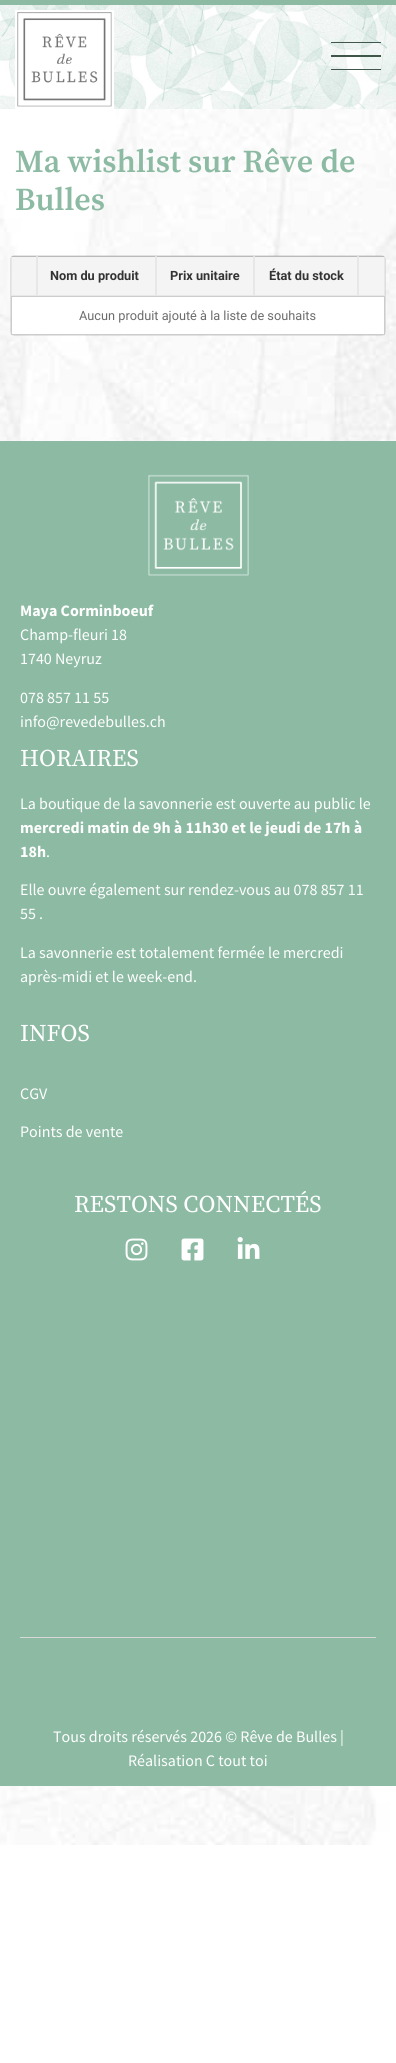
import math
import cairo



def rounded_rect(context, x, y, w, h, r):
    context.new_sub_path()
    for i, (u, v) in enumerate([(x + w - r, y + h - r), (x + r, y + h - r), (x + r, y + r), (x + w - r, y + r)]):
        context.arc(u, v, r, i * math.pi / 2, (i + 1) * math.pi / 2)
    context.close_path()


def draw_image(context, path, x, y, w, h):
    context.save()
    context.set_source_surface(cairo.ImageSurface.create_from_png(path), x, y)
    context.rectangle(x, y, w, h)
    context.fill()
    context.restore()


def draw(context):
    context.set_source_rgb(1, 1, 1)
    context.paint()
    draw_image(context, "images/1.png", 0, 109, 396, 1736)
    draw_image(context, "images/2.png", 0, 5, 396, 104)
    context.set_source_rgb(140 / 255, 186 / 255, 163 / 255)
    context.rectangle(0, 0, 396, 5)
    context.fill()
    context.set_source_rgb(1, 1, 1)
    context.rectangle(15, 10, 99, 99)
    context.fill()
    draw_image(context, "images/3.png", 17, 12, 95, 95)
    context.set_source_rgb(64 / 255, 86 / 255, 75 / 255)
    context.new_path()
    context.move_to(331, 42)
    context.line_to(381, 42)
    context.line_to(381, 43)
    context.line_to(331, 43)
    context.close_path()
    context.move_to(331, 55)
    context.line_to(381, 55)
    context.line_to(381, 57)
    context.line_to(331, 57)
    context.close_path()
    context.move_to(331, 69)
    context.line_to(381, 69)
    context.line_to(381, 70)
    context.line_to(331, 70)
    context.close_path()
    context.fill()
    rounded_rect(context, 10.5, 255.5, 375, 80, 4.5)
    context.set_source_rgba(0, 0, 0, 0.1)
    context.set_line_width(1)
    context.stroke()
    context.set_source_rgb(244 / 255, 244 / 255, 244 / 255)
    context.rectangle(11, 256, 374, 39)
    context.fill()
    context.set_source_rgb(186 / 255, 186 / 255, 186 / 255)
    context.new_path()
    context.move_to(11, 256)
    context.line_to(37, 256)
    context.line_to(36, 257)
    context.line_to(12, 257)
    context.close_path()
    context.fill()
    context.set_source_rgb(231 / 255, 231 / 255, 231 / 255)
    context.new_path()
    context.move_to(37, 256)
    context.line_to(37, 296)
    context.line_to(36, 295)
    context.line_to(36, 257)
    context.close_path()
    context.fill()
    context.rectangle(11, 295, 26, 1)
    context.fill()
    context.new_path()
    context.move_to(11, 296)
    context.line_to(11, 256)
    context.line_to(12, 257)
    context.line_to(12, 295)
    context.close_path()
    context.fill()
    context.set_source_rgb(186 / 255, 186 / 255, 186 / 255)
    context.new_path()
    context.move_to(37, 256)
    context.line_to(156, 256)
    context.line_to(155, 257)
    context.line_to(38, 257)
    context.close_path()
    context.fill()
    context.set_source_rgb(231 / 255, 231 / 255, 231 / 255)
    context.new_path()
    context.move_to(156, 256)
    context.line_to(156, 296)
    context.line_to(155, 295)
    context.line_to(155, 257)
    context.close_path()
    context.fill()
    context.rectangle(37, 295, 119, 1)
    context.fill()
    context.new_path()
    context.move_to(37, 296)
    context.line_to(37, 256)
    context.line_to(38, 257)
    context.line_to(38, 295)
    context.close_path()
    context.fill()
    context.set_source_rgb(186 / 255, 186 / 255, 186 / 255)
    context.new_path()
    context.move_to(156, 256)
    context.line_to(254, 256)
    context.line_to(253, 257)
    context.line_to(157, 257)
    context.close_path()
    context.fill()
    context.set_source_rgb(231 / 255, 231 / 255, 231 / 255)
    context.new_path()
    context.move_to(254, 256)
    context.line_to(254, 296)
    context.line_to(253, 295)
    context.line_to(253, 257)
    context.close_path()
    context.fill()
    context.rectangle(156, 295, 98, 1)
    context.fill()
    context.new_path()
    context.move_to(156, 296)
    context.line_to(156, 256)
    context.line_to(157, 257)
    context.line_to(157, 295)
    context.close_path()
    context.fill()
    context.set_source_rgb(186 / 255, 186 / 255, 186 / 255)
    context.new_path()
    context.move_to(254, 256)
    context.line_to(358, 256)
    context.line_to(357, 257)
    context.line_to(255, 257)
    context.close_path()
    context.fill()
    context.set_source_rgb(231 / 255, 231 / 255, 231 / 255)
    context.new_path()
    context.move_to(358, 256)
    context.line_to(358, 296)
    context.line_to(357, 295)
    context.line_to(357, 257)
    context.close_path()
    context.fill()
    context.rectangle(254, 295, 104, 1)
    context.fill()
    context.new_path()
    context.move_to(254, 296)
    context.line_to(254, 256)
    context.line_to(255, 257)
    context.line_to(255, 295)
    context.close_path()
    context.fill()
    context.set_source_rgb(186 / 255, 186 / 255, 186 / 255)
    context.new_path()
    context.move_to(358, 256)
    context.line_to(385, 256)
    context.line_to(384, 257)
    context.line_to(359, 257)
    context.close_path()
    context.fill()
    context.set_source_rgb(231 / 255, 231 / 255, 231 / 255)
    context.new_path()
    context.move_to(385, 256)
    context.line_to(385, 296)
    context.line_to(384, 295)
    context.line_to(384, 257)
    context.close_path()
    context.fill()
    context.rectangle(358, 295, 27, 1)
    context.fill()
    context.new_path()
    context.move_to(358, 296)
    context.line_to(358, 256)
    context.line_to(359, 257)
    context.line_to(359, 295)
    context.close_path()
    context.fill()
    context.set_source_rgb(1, 1, 1)
    context.rectangle(11.5, 296.5, 373, 38)
    context.fill_preserve()
    context.set_source_rgb(204 / 255, 204 / 255, 204 / 255)
    context.stroke()
    context.set_source_rgb(140 / 255, 186 / 255, 163 / 255)
    context.rectangle(0, 441, 396, 1345)
    context.fill()
    draw_image(context, "images/4.png", 148, 474, 101, 102)
    draw_image(context, "images/5.png", 125, 1238, 23, 23)
    draw_image(context, "images/6.png", 181, 1238, 23, 23)
    draw_image(context, "images/7.png", 237, 1237, 23, 22)
    context.set_source_rgb(216 / 255, 216 / 255, 216 / 255)
    context.rectangle(20, 1637, 356, 1)
    context.fill()
    context.select_font_face("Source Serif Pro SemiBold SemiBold")
    context.set_font_size(32)
    context.set_source_rgb(140 / 255, 186 / 255, 163 / 255)
    context.move_to(15, 172)
    context.show_text("Ma wishlist sur Rêve de")
    context.move_to(15, 210)
    context.show_text("Bulles")
    context.select_font_face("Roboto", cairo.FontSlant.NORMAL, cairo.FontWeight.BOLD)
    context.set_font_size(12.75)
    context.set_source_rgb(51 / 255, 51 / 255, 51 / 255)
    context.move_to(50, 280)
    context.show_text("Nom du produit")
    context.move_to(170, 280)
    context.show_text("Prix unitaire")
    context.move_to(269, 280)
    context.show_text("État du stock")
    context.select_font_face("Roboto")
    context.set_source_rgb(109 / 255, 108 / 255, 108 / 255)
    context.move_to(79, 320)
    context.show_text("Aucun produit ajouté à la liste de souhaits")
    context.select_font_face("Source Sans Pro", cairo.FontSlant.NORMAL, cairo.FontWeight.BOLD)
    context.set_font_size(16)
    context.set_source_rgb(1, 1, 1)
    context.move_to(20, 616)
    context.show_text("Maya Corminboeuf")
    context.select_font_face("Source Sans Pro")
    context.move_to(20, 640)
    context.show_text("Champ-fleuri 18")
    context.move_to(20, 664)
    context.show_text("1740 Neyruz")
    context.move_to(20, 703)
    context.show_text("078 857 11 55")
    context.move_to(20, 727)
    context.show_text("info@revedebulles.ch")
    context.select_font_face("Source Serif Pro")
    context.set_font_size(24)
    context.move_to(20, 766)
    context.show_text("HORAIRES")
    context.select_font_face("Source Sans Pro")
    context.set_font_size(16)
    context.move_to(20, 809)
    context.show_text("La boutique de la savonnerie est ouverte au public le")
    context.select_font_face("Source Sans Pro", cairo.FontSlant.NORMAL, cairo.FontWeight.BOLD)
    context.move_to(20, 833)
    context.show_text("mercredi matin de 9h à 11h30 et le jeudi de 17h à")
    context.move_to(20, 857)
    context.show_text("18h")
    context.select_font_face("Source Sans Pro")
    context.move_to(46, 857)
    context.show_text(".")
    context.move_to(20, 895)
    context.show_text("Elle ouvre également sur rendez-vous au 078 857 11")
    context.move_to(20, 919)
    context.show_text("55 .")
    context.move_to(20, 958)
    context.show_text("La savonnerie est totalement fermée le mercredi")
    context.move_to(20, 982)
    context.show_text("après-midi et le week-end.")
    context.select_font_face("Source Serif Pro")
    context.set_font_size(24)
    context.move_to(20, 1041)
    context.show_text("INFOS")
    context.select_font_face("Source Sans Pro")
    context.set_font_size(16)
    context.move_to(20, 1099)
    context.show_text("CGV")
    context.move_to(20, 1137)
    context.show_text("Points de vente")
    context.select_font_face("Source Serif Pro")
    context.set_font_size(24)
    context.move_to(74, 1212)
    context.show_text("RESTONS CONNECTÉS")
    context.select_font_face("Source Sans Pro")
    context.set_font_size(16)
    context.move_to(53, 1742)
    context.show_text("Tous droits réservés 2026 © Rêve de Bulles |")
    context.move_to(128, 1766)
    context.show_text("Réalisation C tout toi")


surface = cairo.ImageSurface(cairo.Format.RGB24, 396, 2063)
context = cairo.Context(surface)
options = cairo.FontOptions()
options.set_hint_metrics(cairo.HintMetrics.OFF)
options.set_hint_style(cairo.HintStyle.NONE)
context.set_font_options(options)
context.set_miter_limit(4)
draw(context)
surface.write_to_png("out.png")
